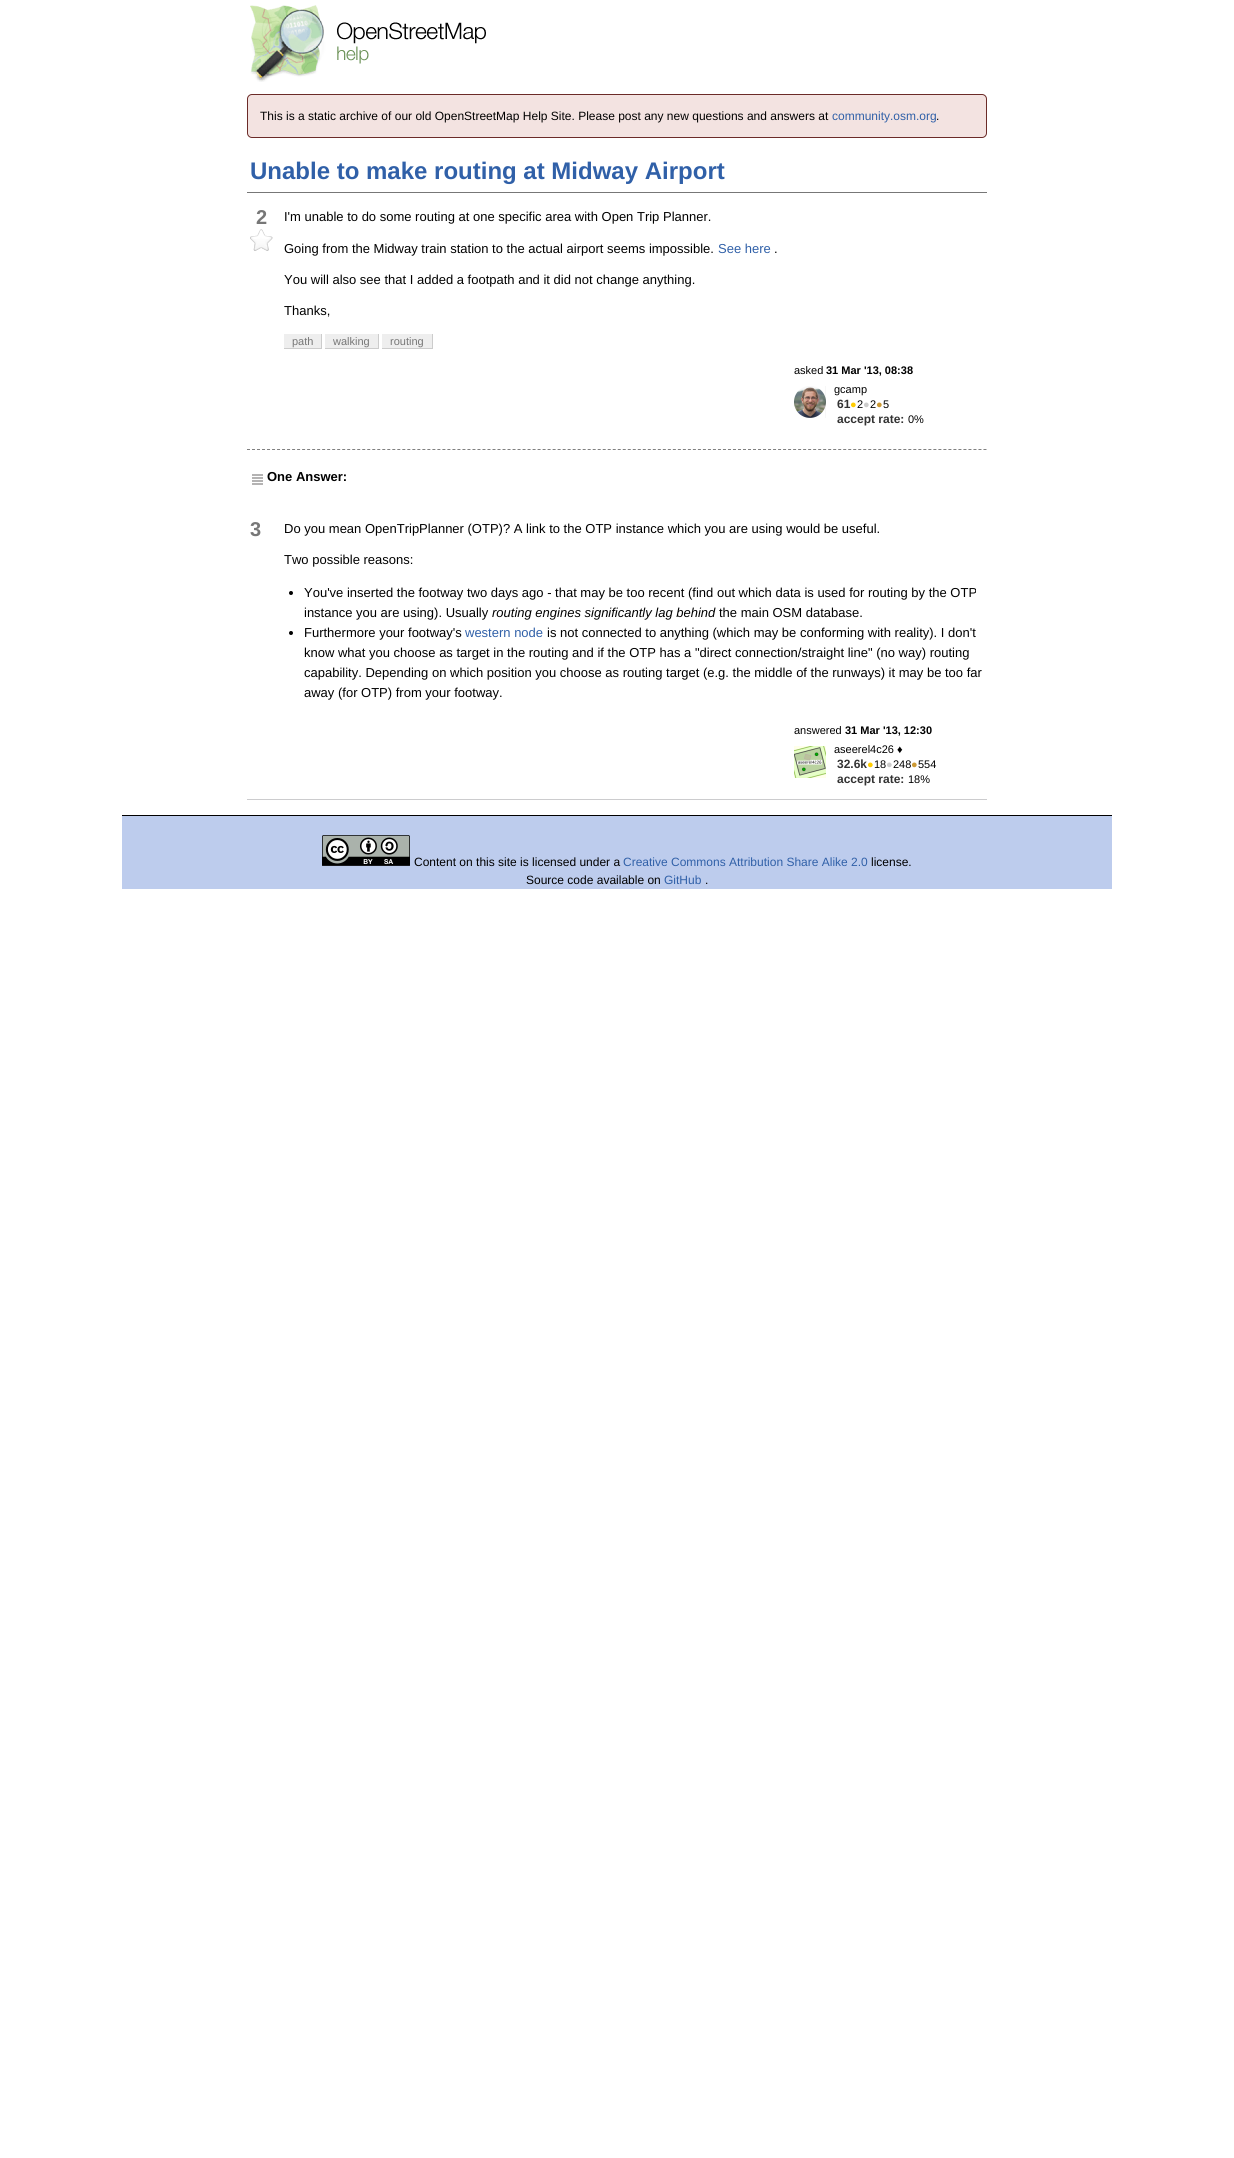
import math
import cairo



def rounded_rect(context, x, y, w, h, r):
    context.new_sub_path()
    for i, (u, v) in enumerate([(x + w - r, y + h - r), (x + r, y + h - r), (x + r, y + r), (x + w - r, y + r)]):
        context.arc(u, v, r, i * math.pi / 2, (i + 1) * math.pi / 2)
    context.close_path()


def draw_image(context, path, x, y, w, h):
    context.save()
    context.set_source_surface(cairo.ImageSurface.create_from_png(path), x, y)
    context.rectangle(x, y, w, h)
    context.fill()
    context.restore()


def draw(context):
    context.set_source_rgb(1, 1, 1)
    context.paint()
    draw_image(context, "images/1.png", 250, 5, 236, 77)
    context.set_source_rgb(243 / 255, 227 / 255, 225 / 255)
    rounded_rect(context, 247.5, 94.5, 739, 43, 4.5)
    context.fill_preserve()
    context.set_source_rgb(107 / 255, 43 / 255, 40 / 255)
    context.set_line_width(1)
    context.stroke()
    context.set_source_rgb(119 / 255, 119 / 255, 119 / 255)
    context.rectangle(247, 192, 740, 1)
    context.fill()
    draw_image(context, "images/2.png", 250, 229, 23, 22)
    context.set_source_rgb(238 / 255, 238 / 255, 238 / 255)
    context.rectangle(284, 334, 37, 14)
    context.fill()
    context.set_source_rgb(204 / 255, 204 / 255, 204 / 255)
    context.rectangle(321, 334, 1, 15)
    context.fill()
    context.rectangle(284, 348, 38, 1)
    context.fill()
    context.set_source_rgb(238 / 255, 238 / 255, 238 / 255)
    context.rectangle(325, 334, 53, 14)
    context.fill()
    context.set_source_rgb(204 / 255, 204 / 255, 204 / 255)
    context.rectangle(378, 334, 1, 15)
    context.fill()
    context.rectangle(325, 348, 54, 1)
    context.fill()
    context.set_source_rgb(238 / 255, 238 / 255, 238 / 255)
    context.rectangle(382, 334, 50, 14)
    context.fill()
    context.set_source_rgb(204 / 255, 204 / 255, 204 / 255)
    context.rectangle(432, 334, 1, 15)
    context.fill()
    context.rectangle(382, 348, 51, 1)
    context.fill()
    draw_image(context, "images/3.png", 794, 386, 32, 32)
    context.new_path()
    context.move_to(247, 449.5)
    context.line_to(987, 449.5)
    context.set_source_rgb(128 / 255, 128 / 255, 128 / 255)
    context.set_dash([3, 2.01])
    context.stroke()
    draw_image(context, "images/4.png", 252, 474, 11, 11)
    context.set_source_rgb(204 / 255, 204 / 255, 206 / 255)
    context.rectangle(247, 799, 740, 1)
    context.fill()
    context.set_source_rgb(0, 0, 0)
    context.arc(291, 593, 2, 0, 2 * math.pi)
    context.fill()
    context.arc(291, 633, 2, 0, 2 * math.pi)
    context.fill()
    draw_image(context, "images/5.png", 794, 746, 32, 32)
    context.set_source_rgb(189 / 255, 204 / 255, 237 / 255)
    context.rectangle(122, 816, 990, 73)
    context.fill()
    context.set_source_rgb(0, 0, 0)
    context.rectangle(122, 815, 990, 1)
    context.fill()
    draw_image(context, "images/6.png", 322, 835, 88, 31)
    context.select_font_face("Liberation Sans")
    context.set_font_size(12)
    context.move_to(260, 120)
    context.show_text("This is a static archive of our old OpenStreetMap Help Site. Please post any new questions and answers at")
    context.set_source_rgb(48 / 255, 96 / 255, 168 / 255)
    context.move_to(832, 120)
    context.show_text("community.osm.org")
    context.set_source_rgb(0, 0, 0)
    context.move_to(936, 120)
    context.show_text(".")
    context.select_font_face("Liberation Sans", cairo.FontSlant.NORMAL, cairo.FontWeight.BOLD)
    context.set_font_size(24)
    context.set_source_rgb(48 / 255, 96 / 255, 168 / 255)
    context.move_to(250, 179)
    context.show_text("Unable to make routing at Midway Airport")
    context.set_font_size(20)
    context.set_source_rgb(119 / 255, 119 / 255, 119 / 255)
    context.move_to(256, 224)
    context.show_text("2")
    context.select_font_face("Liberation Sans")
    context.set_font_size(13)
    context.set_source_rgb(0, 0, 0)
    context.move_to(284, 221)
    context.show_text("I'm unable to do some routing at one specific area with Open Trip Planner.")
    context.move_to(284, 253)
    context.show_text("Going from the Midway train station to the actual airport seems impossible.")
    context.set_source_rgb(48 / 255, 96 / 255, 168 / 255)
    context.move_to(718, 253)
    context.show_text("See here")
    context.set_source_rgb(0, 0, 0)
    context.move_to(774, 253)
    context.show_text(".")
    context.move_to(284, 284)
    context.show_text("You will also see that I added a footpath and it did not change anything.")
    context.move_to(284, 315)
    context.show_text("Thanks,")
    context.set_font_size(11)
    context.set_source_rgb(119 / 255, 119 / 255, 119 / 255)
    context.move_to(292, 345)
    context.show_text("path")
    context.move_to(333, 345)
    context.show_text("walking")
    context.move_to(390, 345)
    context.show_text("routing")
    context.set_source_rgb(0, 0, 0)
    context.move_to(794, 374)
    context.show_text("asked")
    context.select_font_face("Liberation Sans", cairo.FontSlant.NORMAL, cairo.FontWeight.BOLD)
    context.move_to(826, 374)
    context.show_text("31 Mar '13, 08:38")
    context.select_font_face("Liberation Sans")
    context.move_to(834, 393)
    context.show_text("gcamp")
    context.select_font_face("Liberation Sans", cairo.FontSlant.NORMAL, cairo.FontWeight.BOLD)
    context.set_font_size(12)
    context.set_source_rgb(51 / 255, 51 / 255, 51 / 255)
    context.move_to(837, 408)
    context.show_text("61")
    context.select_font_face("Liberation Sans")
    context.set_font_size(11)
    context.set_source_rgb(1, 204 / 255, 0)
    context.move_to(850, 408)
    context.show_text("●")
    context.set_source_rgb(0, 0, 0)
    context.move_to(857, 408)
    context.show_text("2")
    context.set_source_rgb(204 / 255, 204 / 255, 204 / 255)
    context.move_to(863, 408)
    context.show_text("●")
    context.set_source_rgb(0, 0, 0)
    context.move_to(870, 408)
    context.show_text("2")
    context.set_source_rgb(204 / 255, 153 / 255, 51 / 255)
    context.move_to(876, 408)
    context.show_text("●")
    context.set_source_rgb(0, 0, 0)
    context.move_to(883, 408)
    context.show_text("5")
    context.select_font_face("Liberation Sans", cairo.FontSlant.NORMAL, cairo.FontWeight.BOLD)
    context.set_font_size(12)
    context.set_source_rgb(51 / 255, 51 / 255, 51 / 255)
    context.move_to(837, 423)
    context.show_text("accept rate:")
    context.select_font_face("Liberation Sans")
    context.set_font_size(11)
    context.set_source_rgb(0, 0, 0)
    context.move_to(908, 423)
    context.show_text("0%")
    context.select_font_face("Liberation Sans", cairo.FontSlant.NORMAL, cairo.FontWeight.BOLD)
    context.set_font_size(13)
    context.move_to(267, 481)
    context.show_text("One Answer:")
    context.set_font_size(20)
    context.set_source_rgb(119 / 255, 119 / 255, 119 / 255)
    context.move_to(250, 536)
    context.show_text("3")
    context.select_font_face("Liberation Sans")
    context.set_font_size(13)
    context.set_source_rgb(0, 0, 0)
    context.move_to(284, 533)
    context.show_text("Do you mean OpenTripPlanner (OTP)? A link to the OTP instance which you are using would be useful.")
    context.move_to(284, 564)
    context.show_text("Two possible reasons:")
    context.move_to(304, 597)
    context.show_text("You've inserted the footway two days ago - that may be too recent (find out which data is used for routing by the OTP")
    context.move_to(304, 617)
    context.show_text("instance you are using). Usually")
    context.select_font_face("Liberation Sans", cairo.FontSlant.ITALIC)
    context.move_to(492, 617)
    context.show_text("routing engines significantly lag behind")
    context.select_font_face("Liberation Sans")
    context.move_to(719, 617)
    context.show_text("the main OSM database.")
    context.move_to(304, 637)
    context.show_text("Furthermore your footway's")
    context.set_source_rgb(48 / 255, 96 / 255, 168 / 255)
    context.move_to(465, 637)
    context.show_text("western node")
    context.set_source_rgb(0, 0, 0)
    context.move_to(547, 637)
    context.show_text("is not connected to anything (which may be conforming with reality). I don't")
    context.move_to(304, 657)
    context.show_text("know what you choose as target in the routing and if the OTP has a \"direct connection/straight line\" (no way) routing")
    context.move_to(304, 677)
    context.show_text("capability. Depending on which position you choose as routing target (e.g. the middle of the runways) it may be too far")
    context.move_to(304, 697)
    context.show_text("away (for OTP) from your footway.")
    context.set_font_size(11)
    context.move_to(794, 734)
    context.show_text("answered")
    context.select_font_face("Liberation Sans", cairo.FontSlant.NORMAL, cairo.FontWeight.BOLD)
    context.move_to(845, 734)
    context.show_text("31 Mar '13, 12:30")
    context.select_font_face("Liberation Sans")
    context.move_to(834, 753)
    context.show_text("aseerel4c26 ♦")
    context.select_font_face("Liberation Sans", cairo.FontSlant.NORMAL, cairo.FontWeight.BOLD)
    context.set_font_size(12)
    context.set_source_rgb(51 / 255, 51 / 255, 51 / 255)
    context.move_to(837, 768)
    context.show_text("32.6k")
    context.select_font_face("Liberation Sans")
    context.set_font_size(11)
    context.set_source_rgb(1, 204 / 255, 0)
    context.move_to(867, 768)
    context.show_text("●")
    context.set_source_rgb(0, 0, 0)
    context.move_to(874, 768)
    context.show_text("18")
    context.set_source_rgb(204 / 255, 204 / 255, 204 / 255)
    context.move_to(886, 768)
    context.show_text("●")
    context.set_source_rgb(0, 0, 0)
    context.move_to(893, 768)
    context.show_text("248")
    context.set_source_rgb(204 / 255, 153 / 255, 51 / 255)
    context.move_to(911, 768)
    context.show_text("●")
    context.set_source_rgb(0, 0, 0)
    context.move_to(918, 768)
    context.show_text("554")
    context.select_font_face("Liberation Sans", cairo.FontSlant.NORMAL, cairo.FontWeight.BOLD)
    context.set_font_size(12)
    context.set_source_rgb(51 / 255, 51 / 255, 51 / 255)
    context.move_to(837, 783)
    context.show_text("accept rate:")
    context.select_font_face("Liberation Sans")
    context.set_font_size(11)
    context.set_source_rgb(0, 0, 0)
    context.move_to(908, 783)
    context.show_text("18%")
    context.set_font_size(12)
    context.move_to(414, 866)
    context.show_text("Content on this site is licensed under a")
    context.set_source_rgb(48 / 255, 96 / 255, 168 / 255)
    context.move_to(623, 866)
    context.show_text("Creative Commons Attribution Share Alike 2.0")
    context.set_source_rgb(0, 0, 0)
    context.move_to(871, 866)
    context.show_text("license.")
    context.move_to(526, 884)
    context.show_text("Source code available on")
    context.set_source_rgb(48 / 255, 96 / 255, 168 / 255)
    context.move_to(664, 884)
    context.show_text("GitHub")
    context.set_source_rgb(0, 0, 0)
    context.move_to(705, 884)
    context.show_text(".")


surface = cairo.ImageSurface(cairo.Format.RGB24, 1234, 2158)
context = cairo.Context(surface)
options = cairo.FontOptions()
options.set_hint_metrics(cairo.HintMetrics.OFF)
options.set_hint_style(cairo.HintStyle.NONE)
context.set_font_options(options)
context.set_miter_limit(4)
draw(context)
surface.write_to_png("out.png")
